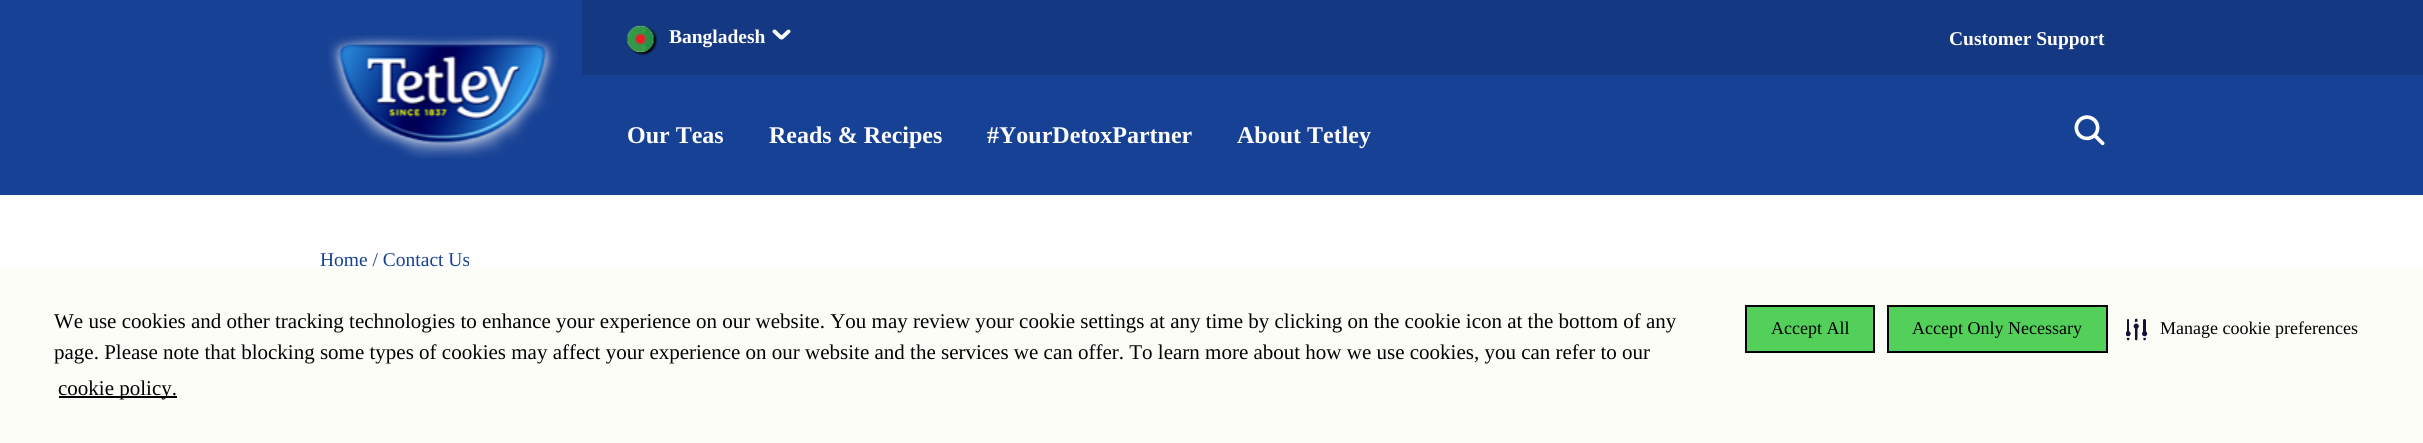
import math
import cairo



def rounded_rect(context, x, y, w, h, r):
    context.new_sub_path()
    for i, (u, v) in enumerate([(x + w - r, y + h - r), (x + r, y + h - r), (x + r, y + r), (x + w - r, y + r)]):
        context.arc(u, v, r, i * math.pi / 2, (i + 1) * math.pi / 2)
    context.close_path()


def draw_shadow(context, x, y, w, h, r, blur, alpha):
    context.push_group_with_content(cairo.Content.ALPHA)
    context.set_operator(cairo.Operator.SOURCE)
    for i in range(15, -16, -2):
        e = blur * i / 6
        if min(w, h) + 2 * e > 0:
            context.set_source_rgba(0, 0, 0, alpha * math.erfc((i - 1) / 8.5) / 2)
            rounded_rect(context, x - e, y - e, w + 2 * e, h + 2 * e, max(0, min(r + e + blur * .6, min(w, h) / 2 + e)))
            context.fill()
    context.mask(context.pop_group())


def draw_image(context, path, x, y, w, h):
    context.save()
    context.set_source_surface(cairo.ImageSurface.create_from_png(path), x, y)
    context.rectangle(x, y, w, h)
    context.fill()
    context.restore()


def draw(context):
    context.set_source_rgb(1, 1, 1)
    context.paint()
    context.set_source_rgb(23 / 255, 65 / 255, 149 / 255)
    context.rectangle(0, 0, 2423, 195)
    context.fill()
    draw_image(context, "images/1.png", 328, 35, 230, 124)
    context.set_source_rgb(20 / 255, 56 / 255, 130 / 255)
    context.rectangle(582, 0, 1841, 75)
    context.fill()
    context.set_source_rgb(0, 0, 0)
    draw_shadow(context, 629, 27, 27, 27, 13.5, 1, 1)
    draw_image(context, "images/2.png", 626, 25, 29, 28)
    draw_image(context, "images/3.png", 772, 29, 19, 11)
    draw_image(context, "images/4.png", 2074, 115, 31, 31)
    context.set_source_rgb(253 / 255, 253 / 255, 248 / 255)
    context.rectangle(0, 269, 2423, 174)
    context.fill()
    context.set_source_rgb(0, 0, 0)
    context.rectangle(59, 396, 118, 2)
    context.fill()
    context.set_source_rgb(83 / 255, 208 / 255, 89 / 255)
    context.rectangle(1746, 306, 128, 46)
    context.fill_preserve()
    context.set_source_rgb(0, 0, 0)
    context.stroke()
    context.set_source_rgb(83 / 255, 208 / 255, 89 / 255)
    context.rectangle(1888, 306, 219, 46)
    context.fill_preserve()
    context.set_source_rgb(0, 0, 0)
    context.stroke()
    draw_image(context, "images/5.png", 2126, 318, 22, 23)
    context.select_font_face("Liberation Serif", cairo.FontSlant.NORMAL, cairo.FontWeight.BOLD)
    context.set_font_size(19.5)
    context.set_source_rgb(1, 1, 1)
    context.move_to(669, 43)
    context.show_text("Bangladesh")
    context.move_to(1949, 45)
    context.show_text("Customer Support")
    context.set_font_size(24)
    context.move_to(627, 143)
    context.show_text("Our Teas")
    context.move_to(769, 143)
    context.show_text("Reads & Recipes")
    context.move_to(987, 143)
    context.show_text("#YourDetoxPartner")
    context.move_to(1237, 143)
    context.show_text("About Tetley")
    context.select_font_face("Liberation Serif")
    context.set_font_size(19.5)
    context.set_source_rgb(23 / 255, 65 / 255, 149 / 255)
    context.move_to(320, 266)
    context.show_text("Home / Contact Us")
    context.set_font_size(21)
    context.set_source_rgb(0, 0, 0)
    context.move_to(54, 328)
    context.show_text("We use cookies and other tracking technologies to enhance your experience on our website. You may review your cookie settings at any time by clicking on the cookie icon at the bottom of any")
    context.move_to(54, 359)
    context.show_text("page. Please note that blocking some types of cookies may affect your experience on our website and the services we can offer. To learn more about how we use cookies, you can refer to our")
    context.move_to(58, 395)
    context.show_text("cookie policy.")
    context.set_font_size(18)
    context.move_to(1771, 334)
    context.show_text("Accept All")
    context.move_to(1912, 334)
    context.show_text("Accept Only Necessary")
    context.move_to(2160, 334)
    context.show_text("Manage cookie preferences")


surface = cairo.ImageSurface(cairo.Format.RGB24, 2423, 443)
context = cairo.Context(surface)
options = cairo.FontOptions()
options.set_hint_metrics(cairo.HintMetrics.OFF)
options.set_hint_style(cairo.HintStyle.NONE)
context.set_font_options(options)
context.set_miter_limit(4)
draw(context)
surface.write_to_png("out.png")
